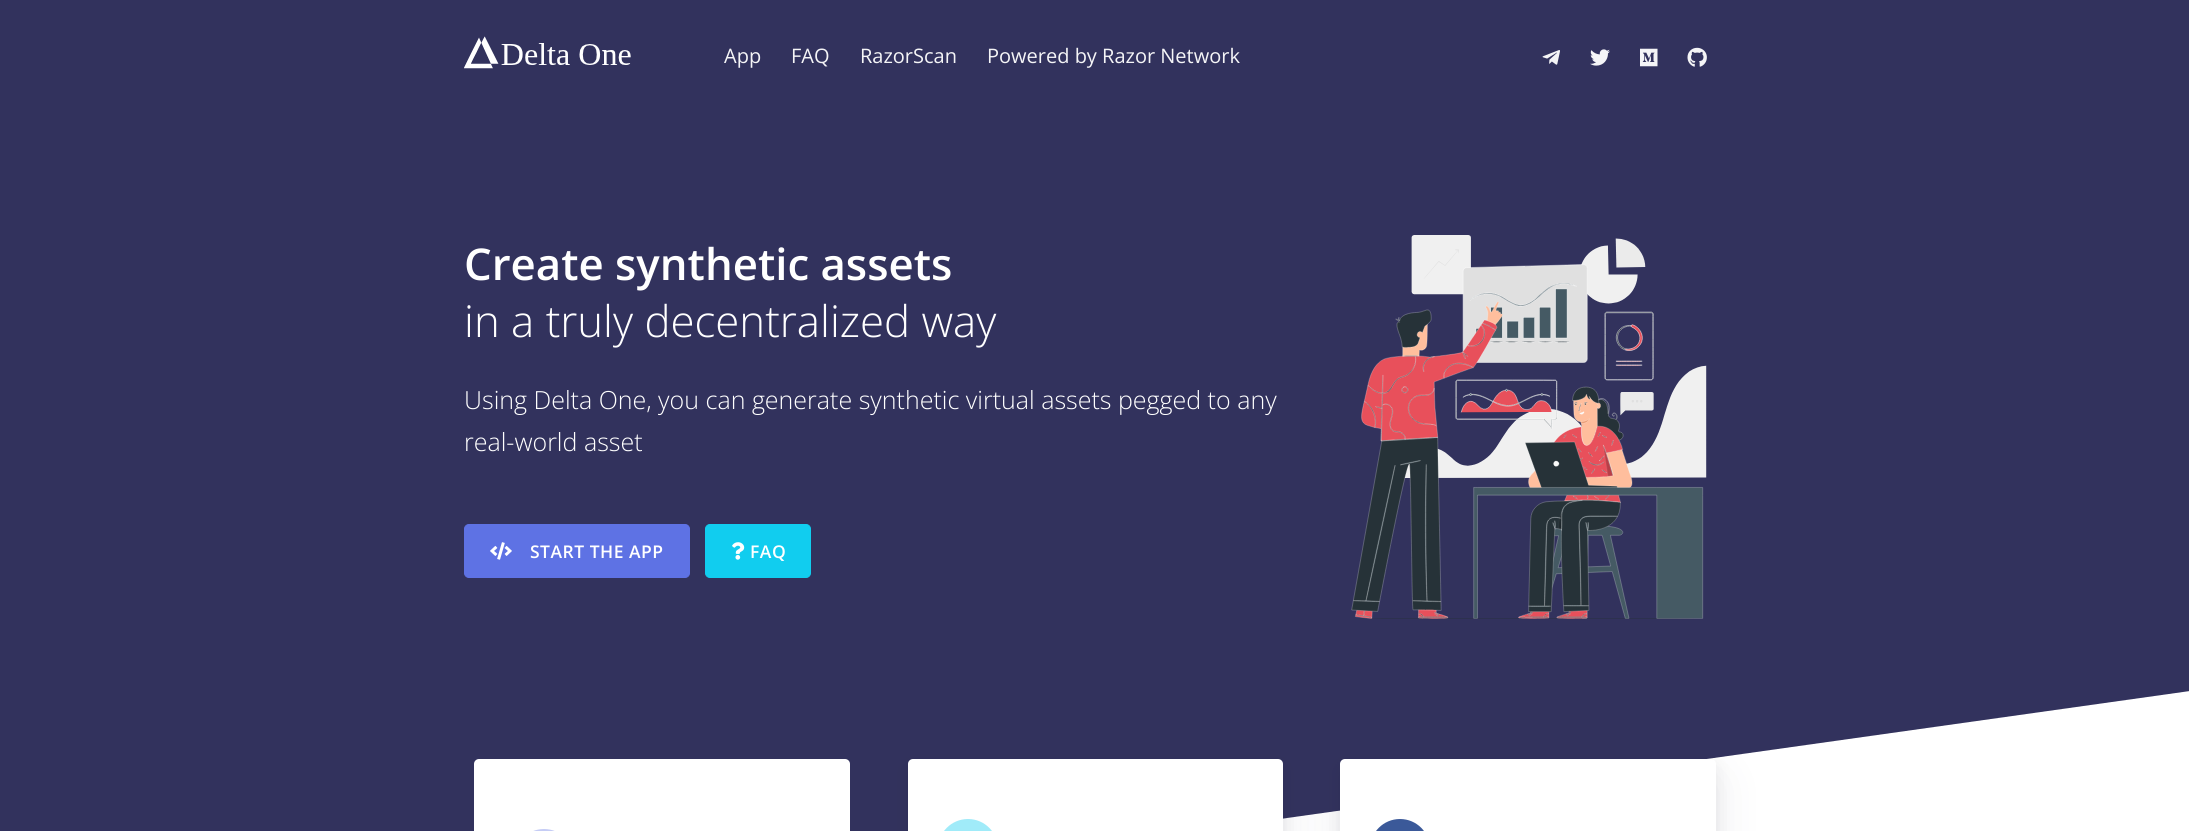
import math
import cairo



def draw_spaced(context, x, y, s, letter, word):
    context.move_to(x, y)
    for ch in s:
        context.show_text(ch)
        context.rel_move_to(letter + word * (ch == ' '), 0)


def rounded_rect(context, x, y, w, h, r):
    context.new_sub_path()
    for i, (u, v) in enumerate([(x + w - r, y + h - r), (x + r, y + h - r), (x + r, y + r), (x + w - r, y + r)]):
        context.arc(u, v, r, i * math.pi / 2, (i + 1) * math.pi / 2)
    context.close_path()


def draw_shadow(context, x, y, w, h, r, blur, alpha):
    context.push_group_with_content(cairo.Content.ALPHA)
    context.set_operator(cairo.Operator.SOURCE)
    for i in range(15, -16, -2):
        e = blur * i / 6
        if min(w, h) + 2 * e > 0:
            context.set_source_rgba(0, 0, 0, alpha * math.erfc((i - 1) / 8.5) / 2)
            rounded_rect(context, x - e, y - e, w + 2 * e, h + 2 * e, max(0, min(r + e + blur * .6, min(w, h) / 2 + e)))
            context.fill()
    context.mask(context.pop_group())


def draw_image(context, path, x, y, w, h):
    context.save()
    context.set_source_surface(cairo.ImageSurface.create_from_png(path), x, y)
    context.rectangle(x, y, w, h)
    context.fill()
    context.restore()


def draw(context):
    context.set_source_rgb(1, 1, 1)
    context.paint()
    context.set_source_rgb(50 / 255, 50 / 255, 93 / 255)
    context.new_path()
    context.move_to(0, 0)
    context.line_to(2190, -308)
    context.line_to(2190, 691)
    context.line_to(0, 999)
    context.close_path()
    context.fill()
    draw_image(context, "images/1.png", 464, 36, 167, 33)
    draw_image(context, "images/2.png", 1542, 50, 18, 15)
    draw_image(context, "images/3.png", 1590, 49, 20, 17)
    draw_image(context, "images/4.png", 1640, 48, 18, 19)
    draw_image(context, "images/5.png", 1687, 47, 20, 20)
    context.set_source_rgb(94 / 255, 114 / 255, 228 / 255)
    rounded_rect(context, 464.5, 524.5, 225, 53, 4.5)
    context.fill_preserve()
    context.set_line_width(1)
    context.stroke()
    draw_image(context, "images/6.png", 490, 542, 22, 18)
    context.set_source_rgb(17 / 255, 205 / 255, 239 / 255)
    rounded_rect(context, 705.5, 524.5, 105, 53, 4.5)
    context.fill_preserve()
    context.stroke()
    draw_image(context, "images/7.png", 732, 542, 13, 18)
    draw_image(context, "images/8.png", 1351, 235, 356, 384)
    context.set_source_rgb(1, 1, 1)
    rounded_rect(context, 474, 759, 376, 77, 5)
    context.fill()
    context.set_source_rgb(197 / 255, 204 / 255, 245 / 255)
    rounded_rect(context, 514, 829, 60, 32, 30)
    context.fill()
    context.set_source_rgb(0, 0, 0)
    draw_shadow(context, 908, 765, 375, 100, 5, 9.5, 0.07)
    context.set_source_rgb(50 / 255, 50 / 255, 93 / 255)
    draw_shadow(context, 908, 778, 375, 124, 5, 22, 0.1)
    context.set_source_rgb(1, 1, 1)
    rounded_rect(context, 908, 759, 375, 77, 5)
    context.fill()
    context.set_source_rgb(160 / 255, 235 / 255, 249 / 255)
    rounded_rect(context, 938, 819, 60, 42, 30)
    context.fill()
    context.set_source_rgb(0, 0, 0)
    draw_shadow(context, 1340, 765, 376, 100, 5, 9.5, 0.07)
    context.set_source_rgb(50 / 255, 50 / 255, 93 / 255)
    draw_shadow(context, 1340, 778, 376, 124, 5, 22, 0.1)
    context.set_source_rgb(1, 1, 1)
    rounded_rect(context, 1340, 759, 376, 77, 5)
    context.fill()
    context.set_source_rgb(59 / 255, 89 / 255, 153 / 255)
    rounded_rect(context, 1370, 819, 60, 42, 30)
    context.fill()
    context.select_font_face("Open Sans")
    context.set_font_size(20)
    context.set_source_rgb(245 / 255, 245 / 255, 247 / 255)
    context.move_to(724, 63)
    context.show_text("App")
    context.move_to(791, 63)
    context.show_text("FAQ")
    context.move_to(860, 63)
    context.show_text("RazorScan")
    context.move_to(987, 63)
    context.show_text("Powered by Razor Network")
    context.select_font_face("Open Sans SemiBold")
    context.set_font_size(43.75)
    context.set_source_rgb(1, 1, 1)
    context.move_to(464, 280)
    context.show_text("Create synthetic assets")
    context.select_font_face("Open Sans Light")
    context.move_to(464, 337)
    context.show_text("in a truly decentralized way")
    context.set_font_size(25)
    context.move_to(464, 409)
    context.show_text("Using Delta One, you can generate synthetic virtual assets pegged to any")
    context.move_to(464, 451)
    context.show_text("real-world asset")
    context.select_font_face("Open Sans SemiBold")
    context.set_font_size(17.5)
    draw_spaced(context, 530, 558, "START THE APP", 0.5, 0)
    draw_spaced(context, 750, 558, "FAQ", 0.5, 0)


surface = cairo.ImageSurface(cairo.Format.RGB24, 2189, 831)
context = cairo.Context(surface)
options = cairo.FontOptions()
options.set_hint_metrics(cairo.HintMetrics.OFF)
options.set_hint_style(cairo.HintStyle.NONE)
context.set_font_options(options)
context.set_miter_limit(4)
draw(context)
surface.write_to_png("out.png")
